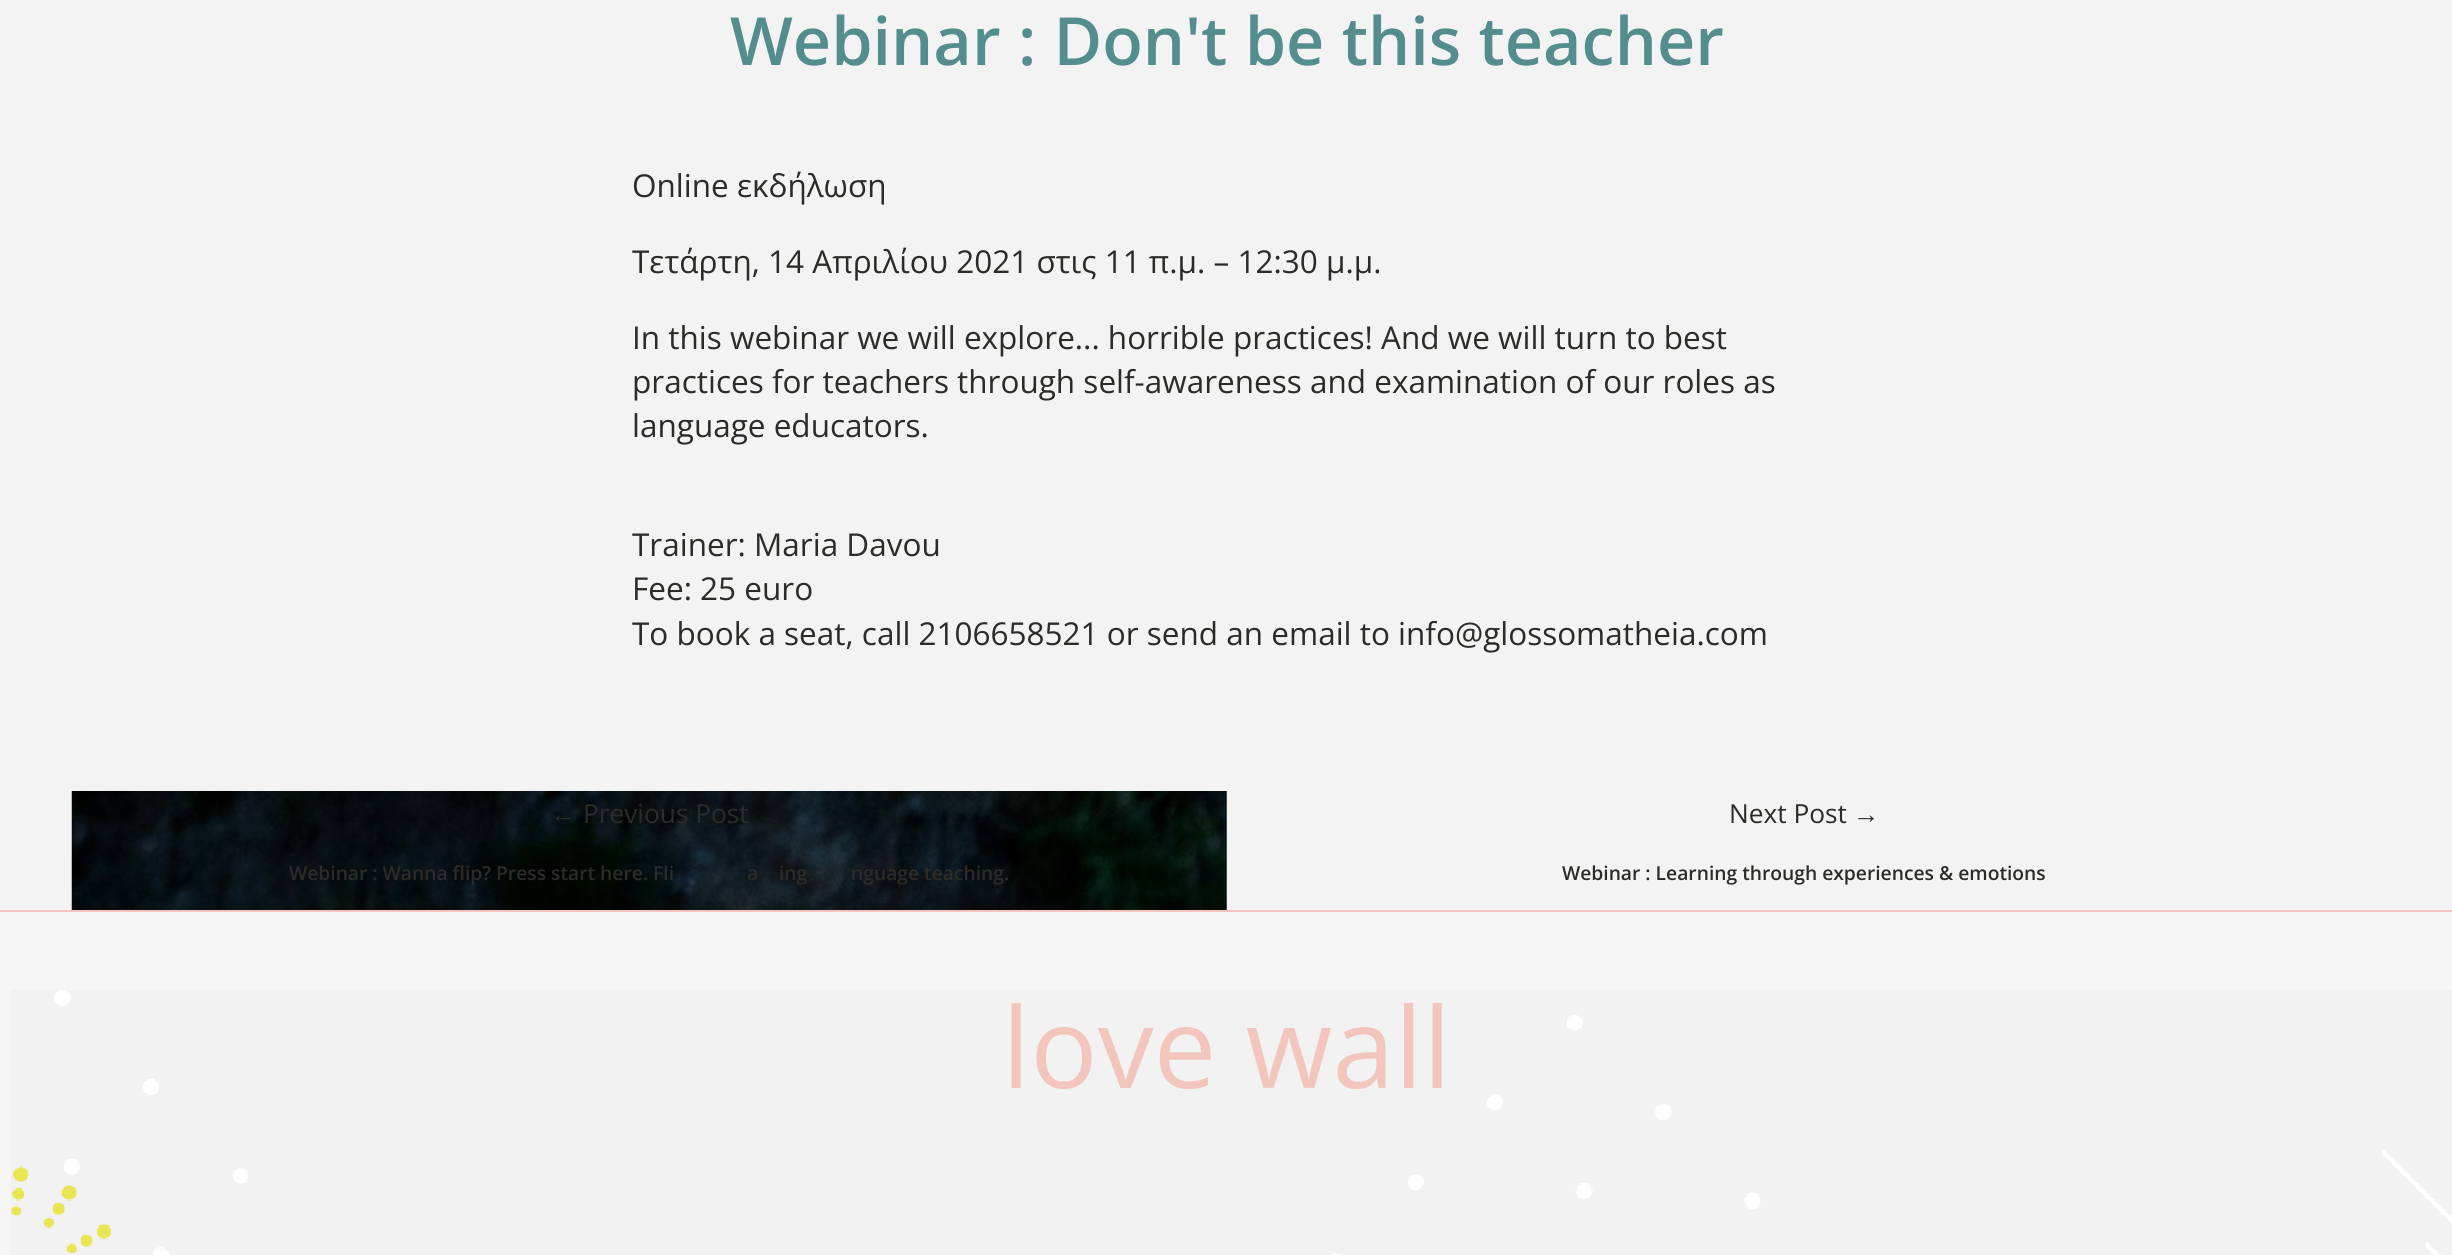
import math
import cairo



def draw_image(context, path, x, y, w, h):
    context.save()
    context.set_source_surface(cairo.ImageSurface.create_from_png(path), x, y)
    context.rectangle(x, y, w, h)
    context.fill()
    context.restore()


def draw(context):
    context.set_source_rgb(243 / 255, 243 / 255, 243 / 255)
    context.paint()
    draw_image(context, "images/1.png", 71, 791, 1156, 119)
    context.set_source_rgb(246 / 255, 246 / 255, 246 / 255)
    context.rectangle(0, 912, 2452, 343)
    context.fill()
    draw_image(context, "images/2.png", 11, 990, 2441, 265)
    context.set_source_rgb(243 / 255, 198 / 255, 189 / 255)
    context.rectangle(0, 910, 2452, 2)
    context.fill()
    context.select_font_face("Open Sans SemiBold")
    context.set_font_size(66.5)
    context.set_source_rgb(83 / 255, 141 / 255, 142 / 255)
    context.move_to(730, 65)
    context.show_text("Webinar : Don't be this teacher")
    context.select_font_face("Open Sans")
    context.set_font_size(31.5)
    context.set_source_rgb(43 / 255, 44 / 255, 40 / 255)
    context.move_to(632, 197)
    context.show_text("Online εκδήλωση")
    context.move_to(632, 273)
    context.show_text("Τετάρτη, 14 Απριλίου 2021 στις 11 π.μ. – 12:30 μ.μ.")
    context.move_to(632, 349)
    context.show_text("In this webinar we will explore... horrible practices! And we will turn to best")
    context.move_to(632, 393)
    context.show_text("practices for teachers through self-awareness and examination of our roles as")
    context.move_to(632, 437)
    context.show_text("language educators.")
    context.move_to(632, 556)
    context.show_text("Trainer: Maria Davou")
    context.move_to(632, 600)
    context.show_text("Fee: 25 euro")
    context.move_to(632, 645)
    context.show_text("To book a seat, call 2106658521 or send an email to info@glossomatheia.com")
    context.select_font_face("Liberation Serif")
    context.set_font_size(26.25)
    context.move_to(550, 823)
    context.show_text("←")
    context.select_font_face("Open Sans")
    context.move_to(583, 823)
    context.show_text("Previous Post")
    context.select_font_face("Open Sans SemiBold")
    context.set_font_size(19.25)
    context.move_to(289, 880)
    context.show_text("Webinar : Wanna flip? Press start here. Fli")
    context.move_to(747, 880)
    context.show_text("a")
    context.move_to(779, 880)
    context.show_text("ing")
    context.move_to(851, 880)
    context.show_text("nguage teaching.")
    context.select_font_face("Open Sans")
    context.set_font_size(26.25)
    context.move_to(1729, 823)
    context.show_text("Next Post")
    context.select_font_face("Liberation Serif")
    context.move_to(1853, 823)
    context.show_text("→")
    context.select_font_face("Open Sans SemiBold")
    context.set_font_size(19.25)
    context.move_to(1562, 880)
    context.show_text("Webinar : Learning through experiences & emotions")
    context.select_font_face("Open Sans")
    context.set_font_size(112)
    context.set_source_rgb(243 / 255, 198 / 255, 189 / 255)
    context.move_to(1002, 1088)
    context.show_text("love wall")


surface = cairo.ImageSurface(cairo.Format.RGB24, 2452, 1255)
context = cairo.Context(surface)
options = cairo.FontOptions()
options.set_hint_metrics(cairo.HintMetrics.OFF)
options.set_hint_style(cairo.HintStyle.NONE)
context.set_font_options(options)
context.set_miter_limit(4)
draw(context)
surface.write_to_png("out.png")
